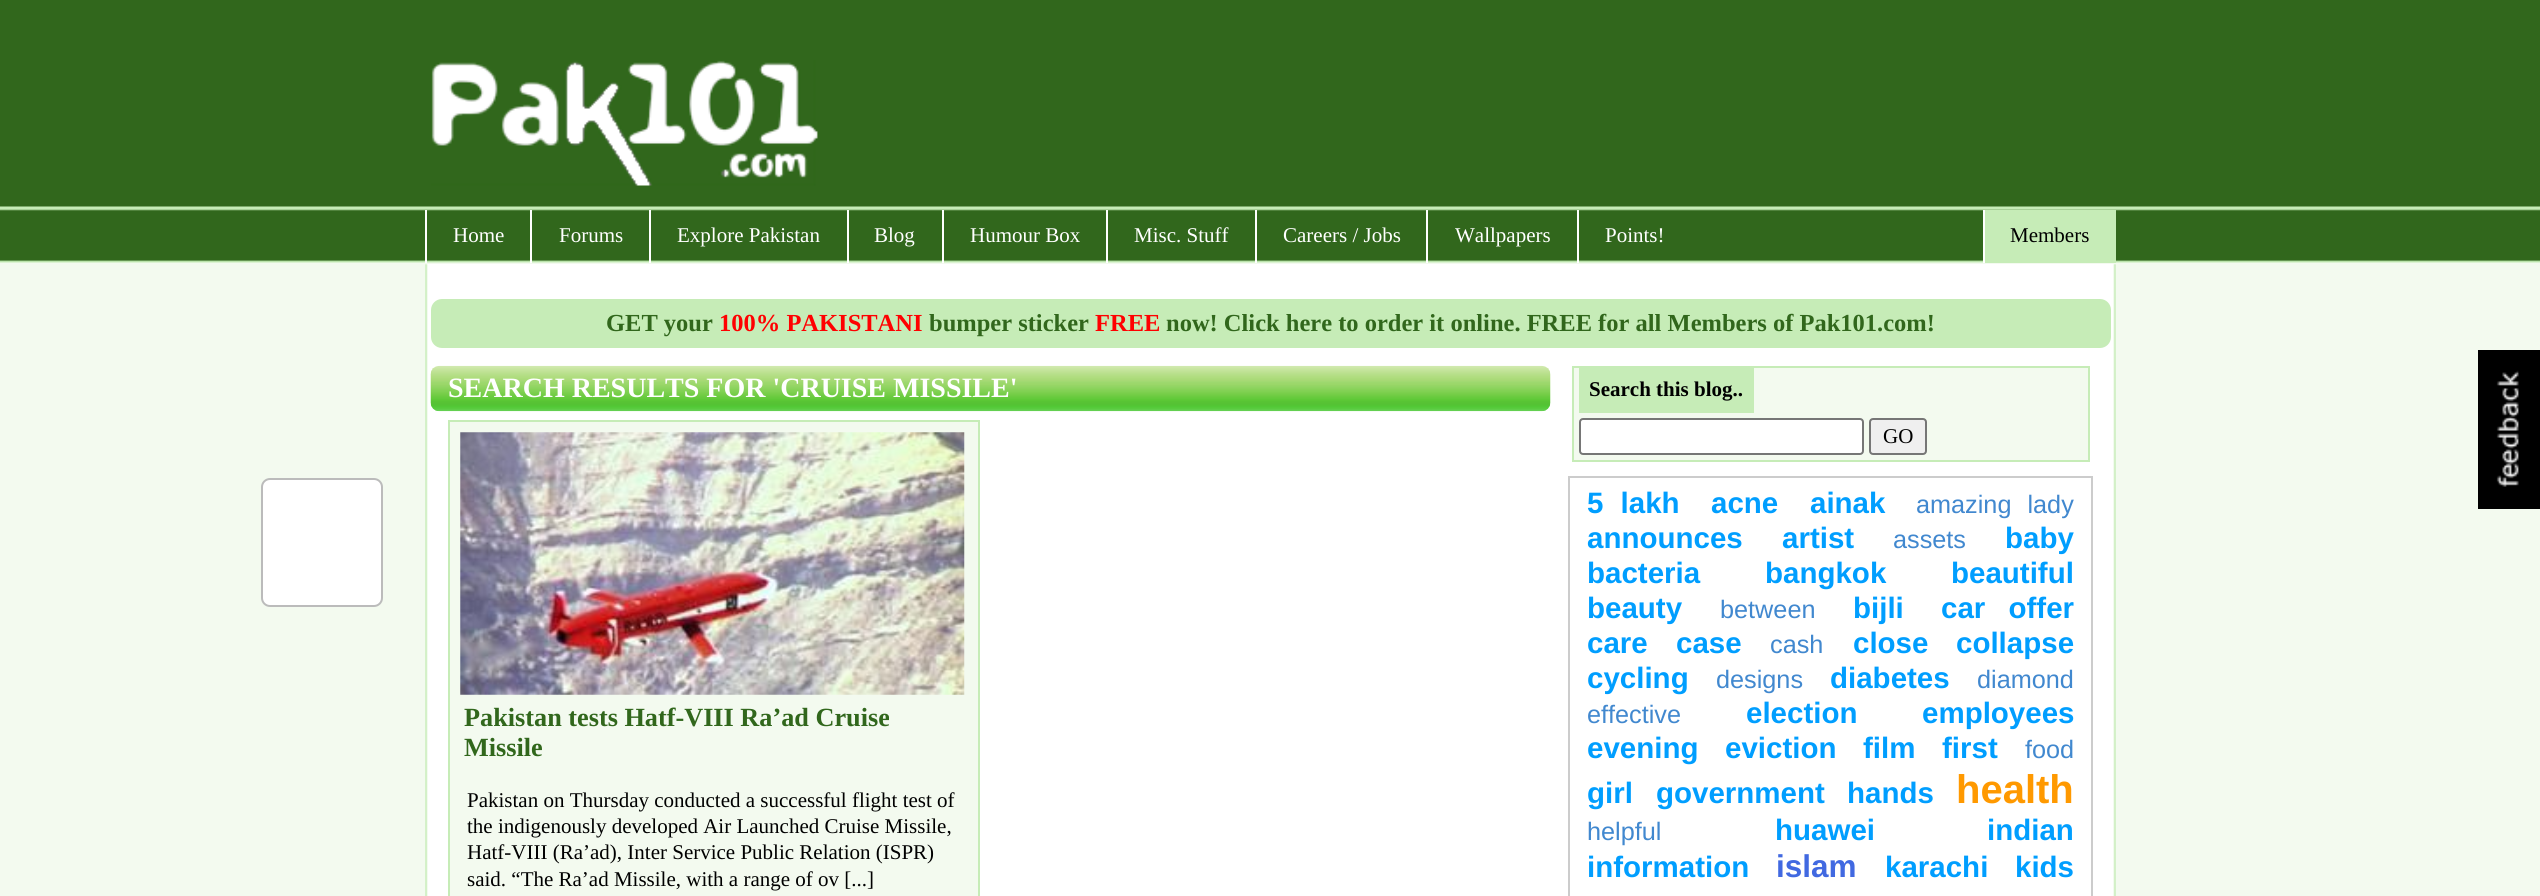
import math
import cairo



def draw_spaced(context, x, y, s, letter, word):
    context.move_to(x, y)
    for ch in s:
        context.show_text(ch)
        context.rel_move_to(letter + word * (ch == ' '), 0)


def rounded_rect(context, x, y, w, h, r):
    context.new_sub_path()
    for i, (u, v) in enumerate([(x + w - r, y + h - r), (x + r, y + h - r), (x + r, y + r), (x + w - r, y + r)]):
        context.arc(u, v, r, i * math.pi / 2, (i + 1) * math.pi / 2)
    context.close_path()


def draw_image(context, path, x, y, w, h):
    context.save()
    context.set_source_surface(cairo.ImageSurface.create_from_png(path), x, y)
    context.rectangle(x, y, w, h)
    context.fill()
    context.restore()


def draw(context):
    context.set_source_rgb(243 / 255, 250 / 255, 239 / 255)
    context.paint()
    draw_image(context, "images/1.png", 0, 0, 2540, 263)
    draw_image(context, "images/2.png", 431, 60, 387, 126)
    context.set_source_rgb(1, 1, 1)
    context.rectangle(425, 210, 2, 53)
    context.fill()
    context.rectangle(530, 210, 2, 53)
    context.fill()
    context.rectangle(649, 210, 2, 53)
    context.fill()
    context.rectangle(847, 210, 2, 53)
    context.fill()
    context.rectangle(942, 210, 2, 53)
    context.fill()
    context.rectangle(1106, 210, 2, 53)
    context.fill()
    context.rectangle(1255, 210, 2, 53)
    context.fill()
    context.rectangle(1426, 210, 2, 53)
    context.fill()
    context.rectangle(1577, 210, 2, 53)
    context.fill()
    context.set_source_rgb(198 / 255, 236 / 255, 183 / 255)
    context.rectangle(1985, 210, 131, 53)
    context.fill()
    context.set_source_rgb(1, 1, 1)
    context.rectangle(1983, 210, 2, 53)
    context.fill()
    context.rectangle(425, 264, 1691, 632)
    context.fill()
    draw_image(context, "images/3.png", 425, 264, 1691, 632)
    context.set_source_rgb(198 / 255, 236 / 255, 183 / 255)
    rounded_rect(context, 432, 300, 1678, 47, 10)
    context.fill_preserve()
    context.stroke()
    draw_image(context, "images/4.png", 430, 365, 1121, 47)
    context.set_source_rgb(243 / 255, 250 / 255, 239 / 255)
    context.rectangle(449, 421, 530, 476)
    context.fill_preserve()
    context.set_source_rgb(198 / 255, 236 / 255, 183 / 255)
    context.stroke()
    draw_image(context, "images/5.png", 460, 432, 505, 263)
    context.set_source_rgb(243 / 255, 250 / 255, 239 / 255)
    context.rectangle(1573, 367, 516, 94)
    context.fill_preserve()
    context.set_source_rgb(198 / 255, 236 / 255, 183 / 255)
    context.stroke()
    context.rectangle(1579, 368, 175, 45)
    context.fill()
    context.set_source_rgb(1, 1, 1)
    rounded_rect(context, 1580, 419, 283, 35, 3)
    context.fill_preserve()
    context.set_source_rgb(118 / 255, 118 / 255, 118 / 255)
    context.stroke()
    context.set_source_rgb(239 / 255, 239 / 255, 239 / 255)
    rounded_rect(context, 1870, 419, 56, 35, 3)
    context.fill_preserve()
    context.set_source_rgb(118 / 255, 118 / 255, 118 / 255)
    context.stroke()
    context.rectangle(1569, 477, 523, 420)
    context.set_source_rgb(204 / 255, 204 / 255, 204 / 255)
    context.stroke()
    context.set_source_rgb(0, 0, 0)
    context.rectangle(2478, 350, 62, 159)
    context.fill()
    draw_image(context, "images/6.png", 2496, 370, 23, 117)
    context.set_source_rgb(1, 1, 1)
    rounded_rect(context, 262, 479, 120, 127, 8)
    context.fill_preserve()
    context.set_source_rgb(187 / 255, 187 / 255, 187 / 255)
    context.stroke()
    context.select_font_face("Liberation Serif")
    context.set_font_size(21)
    context.set_source_rgb(1, 1, 1)
    context.move_to(453, 242)
    context.show_text("Home")
    context.move_to(559, 242)
    context.show_text("Forums")
    context.move_to(677, 242)
    context.show_text("Explore Pakistan")
    context.move_to(874, 242)
    context.show_text("Blog")
    context.move_to(970, 242)
    context.show_text("Humour Box")
    context.move_to(1134, 242)
    context.show_text("Misc. Stuff")
    context.move_to(1283, 242)
    context.show_text("Careers / Jobs")
    context.move_to(1455, 242)
    context.show_text("Wallpapers")
    context.move_to(1605, 242)
    context.show_text("Points!")
    context.set_source_rgb(0, 0, 0)
    context.move_to(2010, 242)
    context.show_text("Members")
    context.select_font_face("Liberation Serif", cairo.FontSlant.NORMAL, cairo.FontWeight.BOLD)
    context.set_font_size(24.5)
    context.set_source_rgb(49 / 255, 103 / 255, 28 / 255)
    context.move_to(606, 331)
    context.show_text("GET your")
    context.set_source_rgb(1, 0, 0)
    context.move_to(719, 331)
    context.show_text("100% PAKISTANI")
    context.set_source_rgb(49 / 255, 103 / 255, 28 / 255)
    context.move_to(929, 331)
    context.show_text("bumper sticker")
    context.set_source_rgb(1, 0, 0)
    context.move_to(1095, 331)
    context.show_text("FREE")
    context.set_source_rgb(49 / 255, 103 / 255, 28 / 255)
    context.move_to(1166, 331)
    context.show_text("now! Click here to order it online. FREE for all Members of Pak101.com!")
    context.set_font_size(28)
    context.set_source_rgb(1, 1, 1)
    context.move_to(448, 397)
    context.show_text("SEARCH RESULTS FOR 'CRUISE MISSILE'")
    context.set_font_size(26.25)
    context.set_source_rgb(49 / 255, 103 / 255, 28 / 255)
    context.move_to(464, 726)
    context.show_text("Pakistan tests Hatf-VIII Ra’ad Cruise")
    context.move_to(464, 756)
    context.show_text("Missile")
    context.select_font_face("Liberation Serif")
    context.set_font_size(21)
    context.set_source_rgb(0, 0, 0)
    context.move_to(467, 807)
    context.show_text("Pakistan on Thursday conducted a successful flight test of")
    context.move_to(467, 833)
    context.show_text("the indigenously developed Air Launched Cruise Missile,")
    context.move_to(467, 859)
    context.show_text("Hatf-VIII (Ra’ad), Inter Service Public Relation (ISPR)")
    context.move_to(467, 886)
    context.show_text("said. “The Ra’ad Missile, with a range of ov [...]")
    context.select_font_face("Liberation Serif", cairo.FontSlant.NORMAL, cairo.FontWeight.BOLD)
    context.move_to(1589, 396)
    context.show_text("Search this blog..")
    context.select_font_face("Liberation Serif")
    context.move_to(1883, 443)
    context.show_text("GO")
    context.select_font_face("Liberation Sans", cairo.FontSlant.NORMAL, cairo.FontWeight.BOLD)
    context.set_font_size(29.5)
    context.set_source_rgb(0, 158 / 255, 1)
    draw_spaced(context, 1587, 513, "5 lakh", 0, 9)
    context.move_to(1711, 513)
    context.show_text("acne")
    context.move_to(1810, 513)
    context.show_text("ainak")
    context.select_font_face("Liberation Sans")
    context.set_font_size(25.25)
    context.set_source_rgb(65 / 255, 136 / 255, 207 / 255)
    draw_spaced(context, 1916, 513, "amazing lady", 0, 9)
    context.select_font_face("Liberation Sans", cairo.FontSlant.NORMAL, cairo.FontWeight.BOLD)
    context.set_font_size(29.5)
    context.set_source_rgb(0, 158 / 255, 1)
    context.move_to(1587, 548)
    context.show_text("announces")
    context.move_to(1782, 548)
    context.show_text("artist")
    context.select_font_face("Liberation Sans")
    context.set_font_size(25.25)
    context.set_source_rgb(65 / 255, 136 / 255, 207 / 255)
    context.move_to(1893, 548)
    context.show_text("assets")
    context.select_font_face("Liberation Sans", cairo.FontSlant.NORMAL, cairo.FontWeight.BOLD)
    context.set_font_size(29.5)
    context.set_source_rgb(0, 158 / 255, 1)
    context.move_to(2005, 548)
    context.show_text("baby")
    context.move_to(1587, 583)
    context.show_text("bacteria")
    context.move_to(1765, 583)
    context.show_text("bangkok")
    context.move_to(1951, 583)
    context.show_text("beautiful")
    context.move_to(1587, 618)
    context.show_text("beauty")
    context.select_font_face("Liberation Sans")
    context.set_font_size(25.25)
    context.set_source_rgb(65 / 255, 136 / 255, 207 / 255)
    context.move_to(1720, 618)
    context.show_text("between")
    context.select_font_face("Liberation Sans", cairo.FontSlant.NORMAL, cairo.FontWeight.BOLD)
    context.set_font_size(29.5)
    context.set_source_rgb(0, 158 / 255, 1)
    context.move_to(1853, 618)
    context.show_text("bijli")
    draw_spaced(context, 1941, 618, "car offer", 0, 15)
    context.move_to(1587, 653)
    context.show_text("care")
    context.move_to(1676, 653)
    context.show_text("case")
    context.select_font_face("Liberation Sans")
    context.set_font_size(25.25)
    context.set_source_rgb(65 / 255, 136 / 255, 207 / 255)
    context.move_to(1770, 653)
    context.show_text("cash")
    context.select_font_face("Liberation Sans", cairo.FontSlant.NORMAL, cairo.FontWeight.BOLD)
    context.set_font_size(29.5)
    context.set_source_rgb(0, 158 / 255, 1)
    context.move_to(1853, 653)
    context.show_text("close")
    context.move_to(1956, 653)
    context.show_text("collapse")
    context.move_to(1587, 688)
    context.show_text("cycling")
    context.select_font_face("Liberation Sans")
    context.set_font_size(25.25)
    context.set_source_rgb(65 / 255, 136 / 255, 207 / 255)
    context.move_to(1716, 688)
    context.show_text("designs")
    context.select_font_face("Liberation Sans", cairo.FontSlant.NORMAL, cairo.FontWeight.BOLD)
    context.set_font_size(29.5)
    context.set_source_rgb(0, 158 / 255, 1)
    context.move_to(1830, 688)
    context.show_text("diabetes")
    context.select_font_face("Liberation Sans")
    context.set_font_size(25.25)
    context.set_source_rgb(65 / 255, 136 / 255, 207 / 255)
    context.move_to(1977, 688)
    context.show_text("diamond")
    context.move_to(1587, 723)
    context.show_text("effective")
    context.select_font_face("Liberation Sans", cairo.FontSlant.NORMAL, cairo.FontWeight.BOLD)
    context.set_font_size(29.5)
    context.set_source_rgb(0, 158 / 255, 1)
    context.move_to(1746, 723)
    context.show_text("election")
    context.move_to(1922, 723)
    context.show_text("employees")
    context.move_to(1587, 758)
    context.show_text("evening")
    context.move_to(1725, 758)
    context.show_text("eviction")
    context.move_to(1863, 758)
    context.show_text("film")
    context.move_to(1942, 758)
    context.show_text("first")
    context.select_font_face("Liberation Sans")
    context.set_font_size(25.25)
    context.set_source_rgb(65 / 255, 136 / 255, 207 / 255)
    context.move_to(2025, 758)
    context.show_text("food")
    context.select_font_face("Liberation Sans", cairo.FontSlant.NORMAL, cairo.FontWeight.BOLD)
    context.set_font_size(29.5)
    context.set_source_rgb(0, 158 / 255, 1)
    context.move_to(1587, 803)
    context.show_text("girl")
    context.move_to(1656, 803)
    context.show_text("government")
    context.move_to(1847, 803)
    context.show_text("hands")
    context.set_font_size(40)
    context.set_source_rgb(1, 153 / 255, 0)
    context.move_to(1956, 803)
    context.show_text("health")
    context.select_font_face("Liberation Sans")
    context.set_font_size(25.25)
    context.set_source_rgb(65 / 255, 136 / 255, 207 / 255)
    context.move_to(1587, 840)
    context.show_text("helpful")
    context.select_font_face("Liberation Sans", cairo.FontSlant.NORMAL, cairo.FontWeight.BOLD)
    context.set_font_size(29.5)
    context.set_source_rgb(0, 158 / 255, 1)
    context.move_to(1775, 840)
    context.show_text("huawei")
    context.move_to(1987, 840)
    context.show_text("indian")
    context.move_to(1587, 877)
    context.show_text("information")
    context.set_font_size(31.5)
    context.set_source_rgb(65 / 255, 105 / 255, 225 / 255)
    context.move_to(1776, 877)
    context.show_text("islam")
    context.set_font_size(29.5)
    context.set_source_rgb(0, 158 / 255, 1)
    context.move_to(1885, 877)
    context.show_text("karachi")
    context.move_to(2015, 877)
    context.show_text("kids")


surface = cairo.ImageSurface(cairo.Format.RGB24, 2540, 896)
context = cairo.Context(surface)
options = cairo.FontOptions()
options.set_hint_metrics(cairo.HintMetrics.OFF)
options.set_hint_style(cairo.HintStyle.NONE)
context.set_font_options(options)
context.set_miter_limit(4)
draw(context)
surface.write_to_png("out.png")
